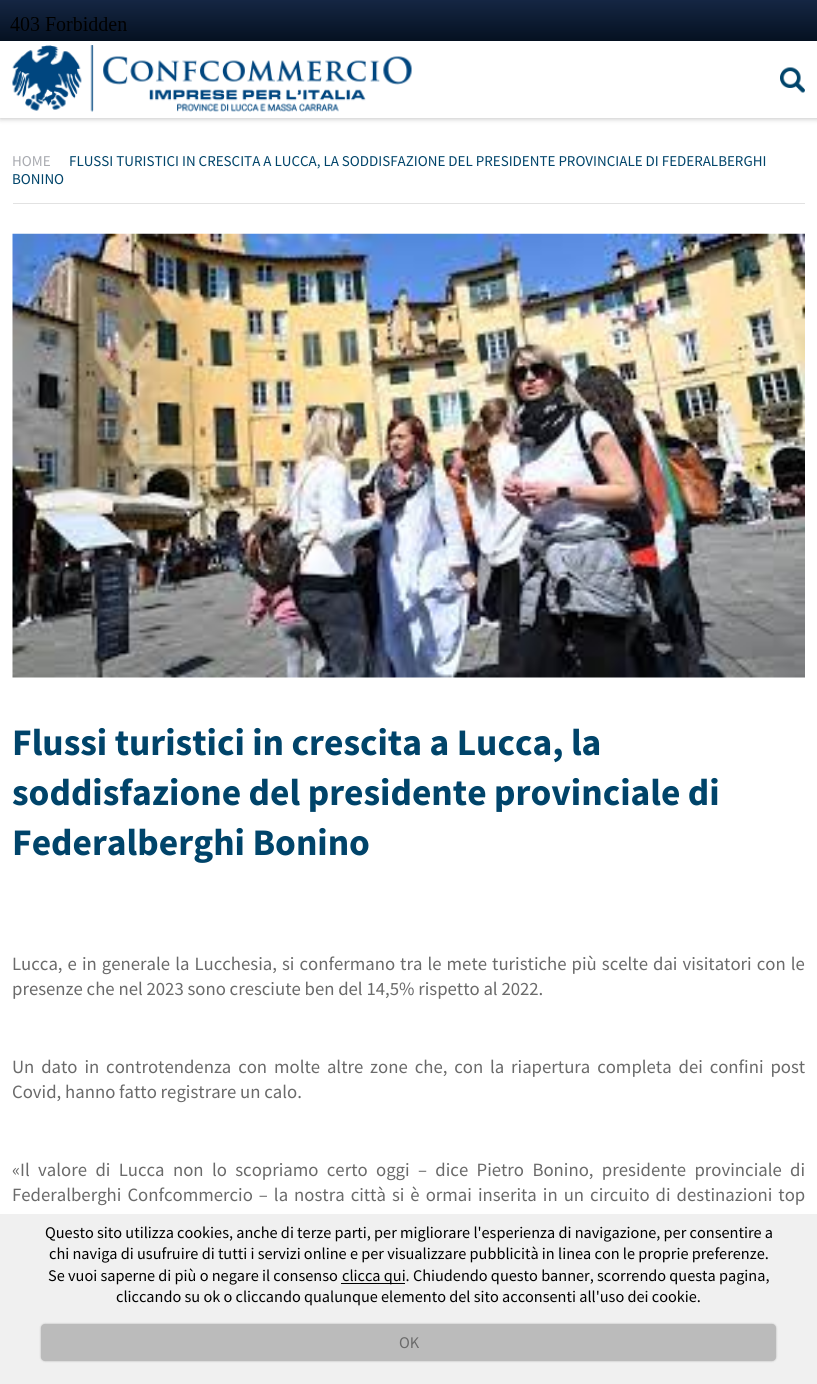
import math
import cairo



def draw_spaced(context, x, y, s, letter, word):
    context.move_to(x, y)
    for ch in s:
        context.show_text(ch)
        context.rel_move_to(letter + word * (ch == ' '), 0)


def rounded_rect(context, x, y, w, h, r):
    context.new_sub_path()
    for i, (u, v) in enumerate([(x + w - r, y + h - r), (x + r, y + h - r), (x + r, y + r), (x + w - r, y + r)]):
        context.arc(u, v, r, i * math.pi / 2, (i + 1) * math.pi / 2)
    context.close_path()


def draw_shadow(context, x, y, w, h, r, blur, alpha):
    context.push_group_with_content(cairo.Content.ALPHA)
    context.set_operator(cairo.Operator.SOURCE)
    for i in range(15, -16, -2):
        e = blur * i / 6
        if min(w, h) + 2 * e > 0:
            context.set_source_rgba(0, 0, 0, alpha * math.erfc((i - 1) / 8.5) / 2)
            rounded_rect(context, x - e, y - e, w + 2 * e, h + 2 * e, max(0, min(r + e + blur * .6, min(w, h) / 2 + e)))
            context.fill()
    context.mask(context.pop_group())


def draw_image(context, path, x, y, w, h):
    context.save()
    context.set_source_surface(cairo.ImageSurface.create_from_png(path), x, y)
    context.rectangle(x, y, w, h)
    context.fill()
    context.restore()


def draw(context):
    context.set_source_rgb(1, 1, 1)
    context.paint()
    context.set_source_rgb(0, 0, 0)
    draw_shadow(context, 0, 0, 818, 118, 0, 3, 0.3)
    context.set_source_rgb(1, 1, 1)
    context.rectangle(0, 41, 817, 77)
    context.fill()
    gradient = cairo.LinearGradient(409, 0, 409, 41)
    gradient.add_color_stop_rgba(0, 21 / 255, 38 / 255, 67 / 255, 1)
    gradient.add_color_stop_rgba(1, 5 / 255, 17 / 255, 33 / 255, 1)
    context.set_source(gradient)
    context.rectangle(0, 0, 817, 41)
    context.fill()
    draw_image(context, "images/1.png", 10, 17, 117, 14)
    draw_image(context, "images/2.png", 12, 45, 400, 67)
    draw_image(context, "images/3.png", 780, 67, 25, 26)
    context.set_source_rgb(226 / 255, 226 / 255, 226 / 255)
    context.rectangle(13, 203, 792, 1)
    context.fill()
    draw_image(context, "images/4.png", 12, 233, 793, 445)
    context.set_source_rgb(240 / 255, 240 / 255, 240 / 255)
    context.rectangle(0, 1214, 817, 170)
    context.fill()
    context.set_source_rgb(0, 0, 0)
    context.rectangle(341, 1283, 64, 1)
    context.fill()
    context.set_source_rgb(0, 0, 0)
    draw_shadow(context, 41, 1324, 735, 37, 4, 1, 0.25)
    context.set_source_rgb(187 / 255, 187 / 255, 187 / 255)
    rounded_rect(context, 41, 1324, 735, 37, 4)
    context.fill()
    context.select_font_face("Source Sans Pro")
    context.set_font_size(15)
    context.set_source_rgb(168 / 255, 170 / 255, 176 / 255)
    context.move_to(12, 166)
    context.show_text("HOME")
    context.set_source_rgb(0, 68 / 255, 106 / 255)
    context.move_to(69, 166)
    context.show_text("FLUSSI TURISTICI IN CRESCITA A LUCCA, LA SODDISFAZIONE DEL PRESIDENTE PROVINCIALE DI FEDERALBERGHI")
    context.move_to(12, 184)
    context.show_text("BONINO")
    context.select_font_face("Source Sans Pro", cairo.FontSlant.NORMAL, cairo.FontWeight.BOLD)
    context.set_font_size(37.5)
    context.move_to(12, 755)
    context.show_text("Flussi turistici in crescita a Lucca, la")
    context.move_to(12, 805)
    context.show_text("soddisfazione del presidente provinciale di")
    context.move_to(12, 855)
    context.show_text("Federalberghi Bonino")
    context.select_font_face("Source Sans Pro")
    context.set_font_size(18.75)
    context.set_source_rgb(106 / 255, 106 / 255, 106 / 255)
    draw_spaced(context, 12, 970, "Lucca, e in generale la Lucchesia, si confermano tra le mete turistiche più scelte dai visitatori con le", 0, 1.3)
    context.move_to(12, 995)
    context.show_text("presenze che nel 2023 sono cresciute ben del 14,5% rispetto al 2022.")
    draw_spaced(context, 12, 1073, "Un dato in controtendenza con molte altre zone che, con la riapertura completa dei confini post", 0, 3.1)
    context.move_to(12, 1098)
    context.show_text("Covid, hanno fatto registrare un calo.")
    draw_spaced(context, 12, 1176, "«Il valore di Lucca non lo scopriamo certo oggi – dice Pietro Bonino, presidente provinciale di", 0, 4.6)
    draw_spaced(context, 12, 1201, "Federalberghi Confcommercio – la nostra città si è ormai inserita in un circuito di destinazioni top", 0, 2.25)
    context.set_font_size(16.25)
    context.set_source_rgb(0, 0, 0)
    context.move_to(45, 1238)
    context.show_text("Questo sito utilizza cookies, anche di terze parti, per migliorare l'esperienza di navigazione, per consentire a")
    context.move_to(49, 1259)
    context.show_text("chi naviga di usufruire di tutti i servizi online e per visualizzare pubblicità in linea con le proprie preferenze.")
    context.move_to(48, 1281)
    context.show_text("Se vuoi saperne di più o negare il consenso")
    context.move_to(342, 1281)
    context.show_text("clicca qui. Chiudendo questo banner, scorrendo questa pagina,")
    context.move_to(116, 1302)
    context.show_text("cliccando su ok o cliccando qualunque elemento del sito acconsenti all'uso dei cookie.")
    context.set_source_rgb(106 / 255, 106 / 255, 106 / 255)
    context.move_to(399, 1348)
    context.show_text("OK")


surface = cairo.ImageSurface(cairo.Format.RGB24, 817, 1384)
context = cairo.Context(surface)
options = cairo.FontOptions()
options.set_hint_metrics(cairo.HintMetrics.OFF)
options.set_hint_style(cairo.HintStyle.NONE)
context.set_font_options(options)
context.set_miter_limit(4)
draw(context)
surface.write_to_png("out.png")
